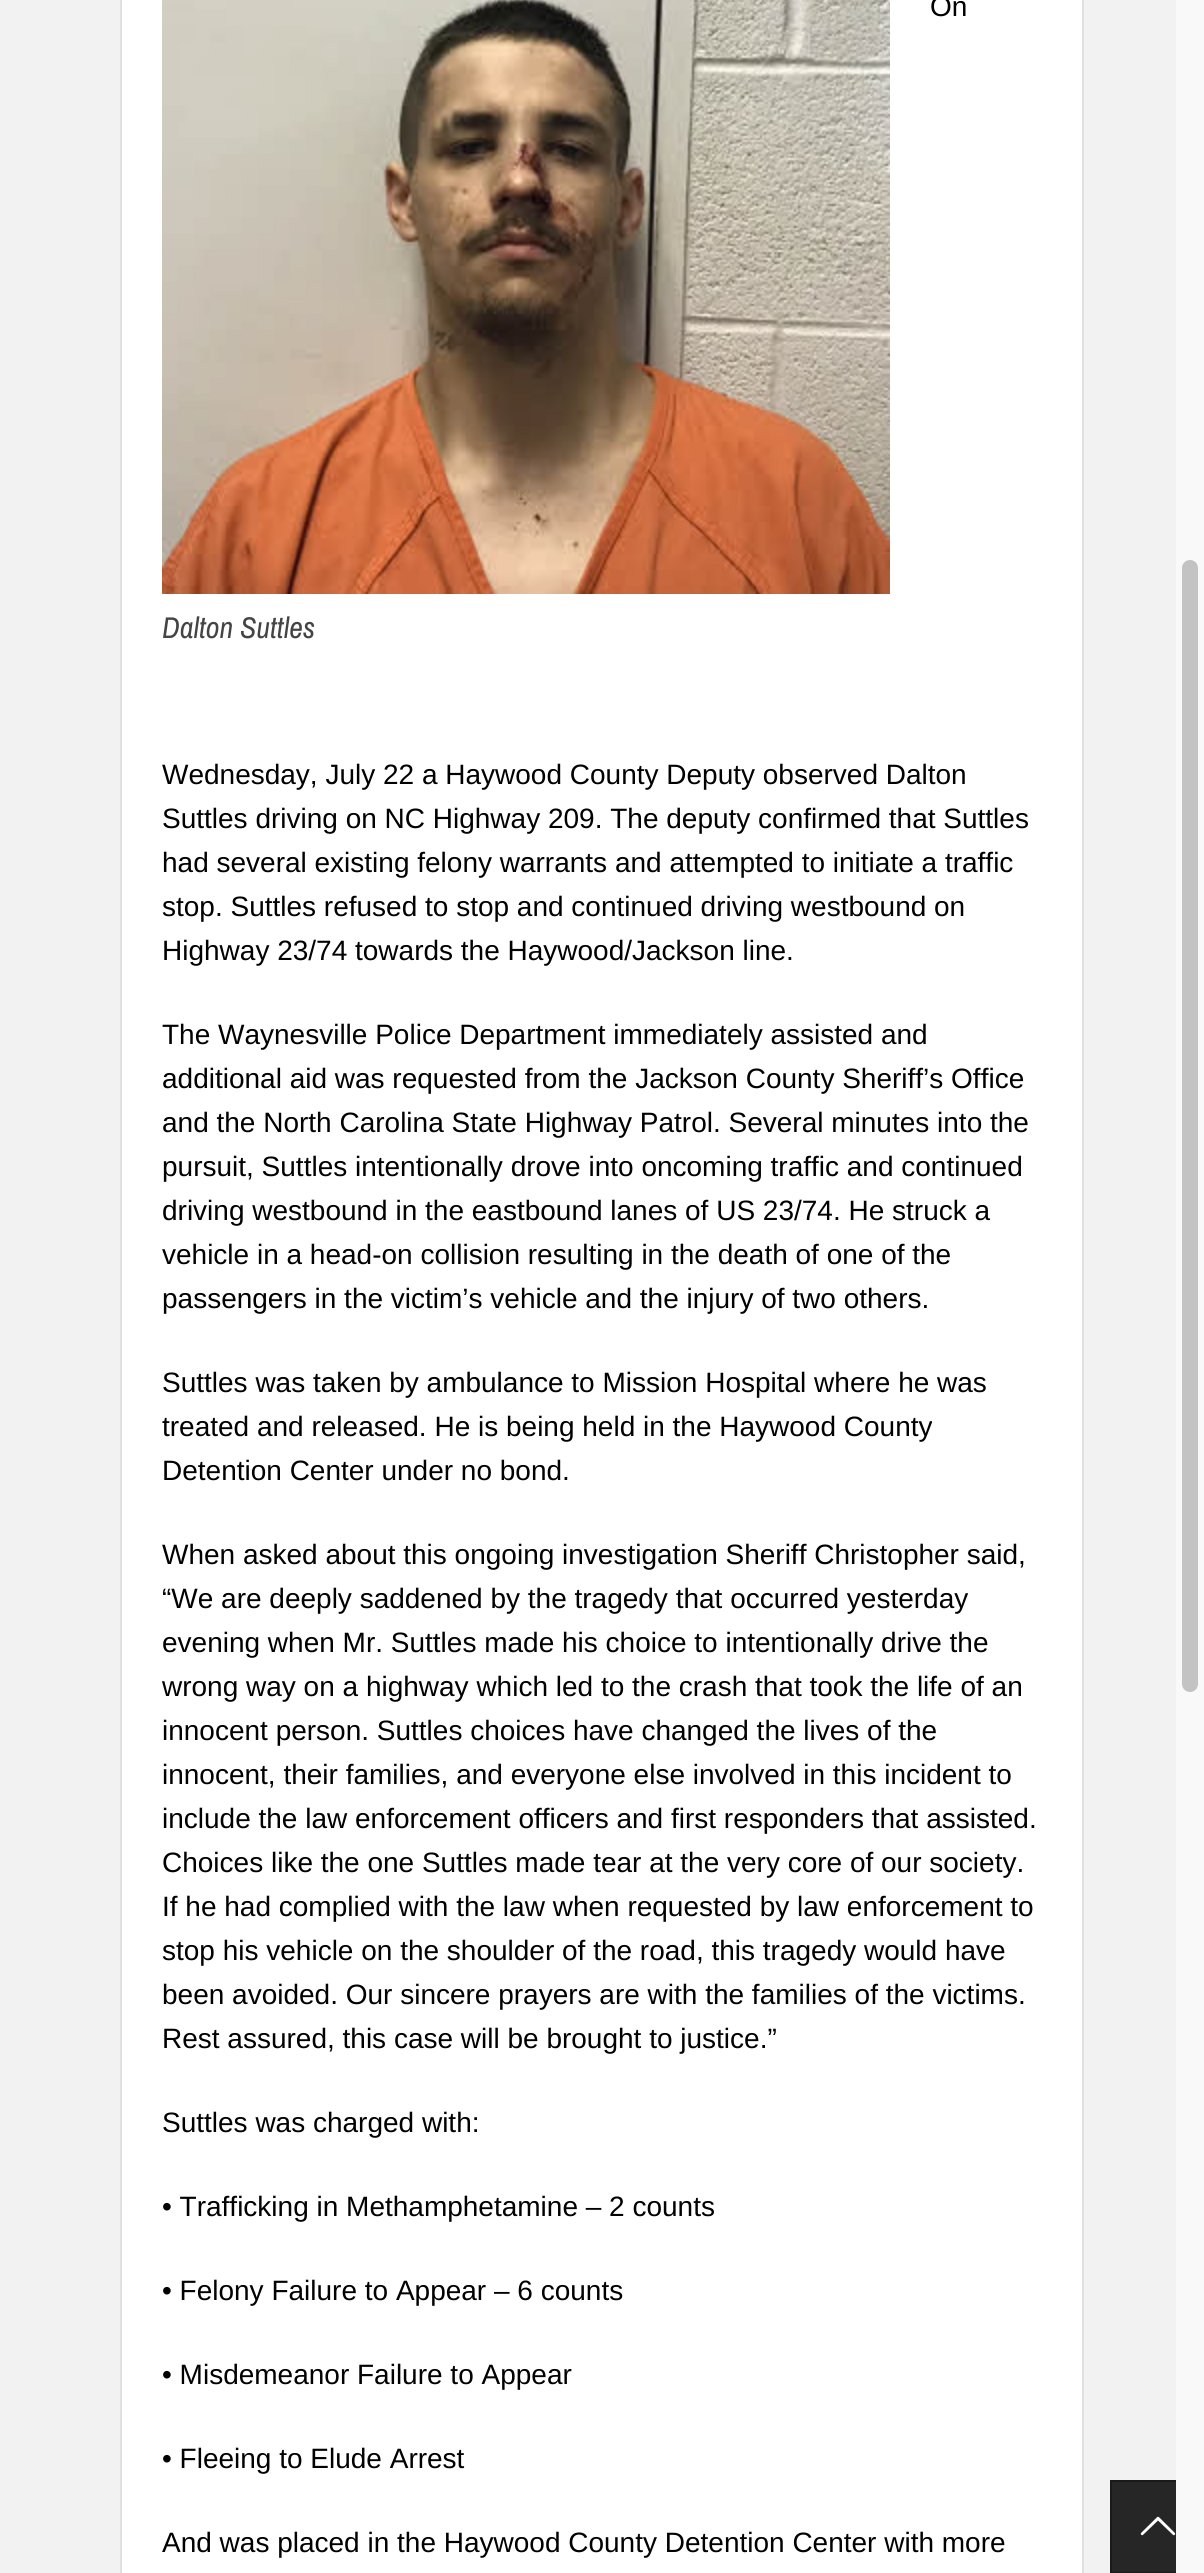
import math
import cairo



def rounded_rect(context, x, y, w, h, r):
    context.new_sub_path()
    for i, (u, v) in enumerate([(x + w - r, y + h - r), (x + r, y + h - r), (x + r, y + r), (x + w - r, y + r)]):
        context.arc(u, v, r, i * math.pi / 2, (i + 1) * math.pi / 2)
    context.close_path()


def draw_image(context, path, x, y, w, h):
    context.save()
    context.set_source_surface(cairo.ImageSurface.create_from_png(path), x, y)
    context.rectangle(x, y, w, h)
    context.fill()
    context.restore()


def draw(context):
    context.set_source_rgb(242 / 255, 242 / 255, 242 / 255)
    context.paint()
    context.set_source_rgb(1, 1, 1)
    context.rectangle(121, -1, 962, 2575)
    context.fill_preserve()
    context.set_source_rgb(225 / 255, 225 / 255, 225 / 255)
    context.stroke()
    draw_image(context, "images/1.png", 162, 0, 728, 594)
    context.set_source_rgb(38 / 255, 38 / 255, 38 / 255)
    context.rectangle(1112, 2482, 64, 90)
    context.fill()
    context.rectangle(1111, 2481, 92, 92)
    context.set_source_rgb(26 / 255, 26 / 255, 26 / 255)
    context.stroke()
    draw_image(context, "images/2.png", 1140, 2516, 36, 20)
    context.set_source_rgb(249 / 255, 249 / 255, 249 / 255)
    context.rectangle(1176, 0, 28, 2573)
    context.fill()
    context.set_source_rgb(195 / 255, 195 / 255, 195 / 255)
    rounded_rect(context, 1182, 560, 16, 1132, 8)
    context.fill()
    context.select_font_face("Liberation Sans")
    context.set_font_size(28)
    context.set_source_rgb(0, 0, 0)
    context.move_to(930, 16)
    context.show_text("On")
    context.move_to(162, 784)
    context.show_text("Wednesday, July 22 a Haywood County Deputy observed Dalton")
    context.move_to(162, 828)
    context.show_text("Suttles driving on NC Highway 209. The deputy confirmed that Suttles")
    context.move_to(162, 872)
    context.show_text("had several existing felony warrants and attempted to initiate a traffic")
    context.move_to(162, 916)
    context.show_text("stop. Suttles refused to stop and continued driving westbound on")
    context.move_to(162, 960)
    context.show_text("Highway 23/74 towards the Haywood/Jackson line.")
    context.select_font_face("Archivo Narrow", cairo.FontSlant.ITALIC)
    context.set_font_size(30)
    context.set_source_rgb(68 / 255, 68 / 255, 68 / 255)
    context.move_to(162, 638)
    context.show_text("Dalton Suttles")
    context.select_font_face("Liberation Sans")
    context.set_font_size(28)
    context.set_source_rgb(0, 0, 0)
    context.move_to(162, 1044)
    context.show_text("The Waynesville Police Department immediately assisted and")
    context.move_to(162, 1088)
    context.show_text("additional aid was requested from the Jackson County Sheriff’s Office")
    context.move_to(162, 1132)
    context.show_text("and the North Carolina State Highway Patrol. Several minutes into the")
    context.move_to(162, 1176)
    context.show_text("pursuit, Suttles intentionally drove into oncoming traffic and continued")
    context.move_to(162, 1220)
    context.show_text("driving westbound in the eastbound lanes of US 23/74. He struck a")
    context.move_to(162, 1264)
    context.show_text("vehicle in a head-on collision resulting in the death of one of the")
    context.move_to(162, 1308)
    context.show_text("passengers in the victim’s vehicle and the injury of two others.")
    context.move_to(162, 1392)
    context.show_text("Suttles was taken by ambulance to Mission Hospital where he was")
    context.move_to(162, 1436)
    context.show_text("treated and released. He is being held in the Haywood County")
    context.move_to(162, 1480)
    context.show_text("Detention Center under no bond.")
    context.move_to(162, 1564)
    context.show_text("When asked about this ongoing investigation Sheriff Christopher said,")
    context.move_to(162, 1608)
    context.show_text("“We are deeply saddened by the tragedy that occurred yesterday")
    context.move_to(162, 1652)
    context.show_text("evening when Mr. Suttles made his choice to intentionally drive the")
    context.move_to(162, 1696)
    context.show_text("wrong way on a highway which led to the crash that took the life of an")
    context.move_to(162, 1740)
    context.show_text("innocent person. Suttles choices have changed the lives of the")
    context.move_to(162, 1784)
    context.show_text("innocent, their families, and everyone else involved in this incident to")
    context.move_to(162, 1828)
    context.show_text("include the law enforcement officers and first responders that assisted.")
    context.move_to(162, 1872)
    context.show_text("Choices like the one Suttles made tear at the very core of our society.")
    context.move_to(162, 1916)
    context.show_text("If he had complied with the law when requested by law enforcement to")
    context.move_to(162, 1960)
    context.show_text("stop his vehicle on the shoulder of the road, this tragedy would have")
    context.move_to(162, 2004)
    context.show_text("been avoided. Our sincere prayers are with the families of the victims.")
    context.move_to(162, 2048)
    context.show_text("Rest assured, this case will be brought to justice.”")
    context.move_to(162, 2132)
    context.show_text("Suttles was charged with:")
    context.move_to(162, 2216)
    context.show_text("• Trafficking in Methamphetamine – 2 counts")
    context.move_to(162, 2300)
    context.show_text("• Felony Failure to Appear – 6 counts")
    context.move_to(162, 2384)
    context.show_text("• Misdemeanor Failure to Appear")
    context.move_to(162, 2468)
    context.show_text("• Fleeing to Elude Arrest")
    context.move_to(162, 2552)
    context.show_text("And was placed in the Haywood County Detention Center with more")


surface = cairo.ImageSurface(cairo.Format.RGB24, 1204, 2573)
context = cairo.Context(surface)
options = cairo.FontOptions()
options.set_hint_metrics(cairo.HintMetrics.OFF)
options.set_hint_style(cairo.HintStyle.NONE)
context.set_font_options(options)
context.set_miter_limit(4)
draw(context)
surface.write_to_png("out.png")
